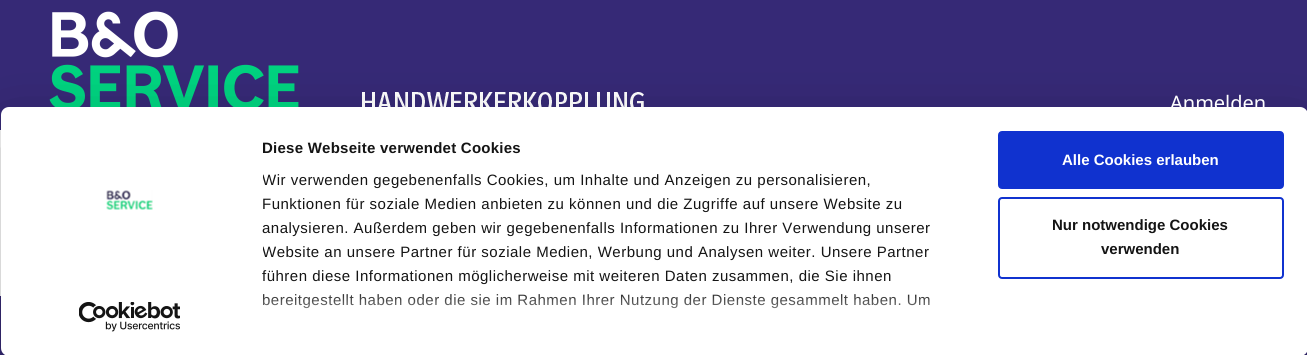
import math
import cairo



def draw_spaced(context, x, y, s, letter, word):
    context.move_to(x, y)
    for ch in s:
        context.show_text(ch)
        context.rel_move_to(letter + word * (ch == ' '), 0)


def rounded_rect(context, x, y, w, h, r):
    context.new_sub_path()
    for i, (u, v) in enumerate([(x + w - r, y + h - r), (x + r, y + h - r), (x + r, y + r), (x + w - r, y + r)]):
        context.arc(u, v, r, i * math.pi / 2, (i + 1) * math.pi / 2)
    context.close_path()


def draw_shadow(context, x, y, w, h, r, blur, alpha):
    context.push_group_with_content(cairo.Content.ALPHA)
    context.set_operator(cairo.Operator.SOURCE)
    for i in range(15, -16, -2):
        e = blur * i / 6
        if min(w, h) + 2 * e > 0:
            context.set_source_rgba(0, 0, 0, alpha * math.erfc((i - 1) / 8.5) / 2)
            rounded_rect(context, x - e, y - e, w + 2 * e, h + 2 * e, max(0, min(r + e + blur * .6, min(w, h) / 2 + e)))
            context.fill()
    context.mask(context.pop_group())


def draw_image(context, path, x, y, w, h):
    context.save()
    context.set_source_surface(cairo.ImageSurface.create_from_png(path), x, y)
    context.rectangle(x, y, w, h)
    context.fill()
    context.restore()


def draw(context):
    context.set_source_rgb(1, 1, 1)
    context.paint()
    context.set_source_rgb(54 / 255, 41 / 255, 118 / 255)
    context.rectangle(0, 0, 1307, 130)
    context.fill()
    draw_image(context, "images/1.png", 49, 11, 250, 96)
    draw_image(context, "images/2.png", 362, 92, 282, 15)
    context.rectangle(0, 296, 1307, 59)
    context.fill()
    context.set_source_rgb(0, 0, 0)
    draw_shadow(context, 1, 137, 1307, 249, 8, 35, 0.3)
    context.set_source_rgb(1, 1, 1)
    rounded_rect(context, 1, 107, 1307, 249, 8)
    context.fill()
    draw_image(context, "images/3.png", 106, 190, 47, 20)
    draw_image(context, "images/4.png", 79, 302, 101, 30)
    context.set_source_rgb(16 / 255, 50 / 255, 207 / 255)
    rounded_rect(context, 999, 132, 284, 56, 3)
    context.fill_preserve()
    context.stroke()
    rounded_rect(context, 999, 198, 284, 80, 3)
    context.stroke()
    context.select_font_face("Noto Sans")
    context.set_font_size(20)
    context.set_source_rgb(1, 1, 1)
    context.move_to(1170, 110)
    context.show_text("Anmelden")
    context.select_font_face("Liberation Sans", cairo.FontSlant.NORMAL, cairo.FontWeight.BOLD)
    context.set_font_size(15)
    context.set_source_rgb(20 / 255, 20 / 255, 20 / 255)
    draw_spaced(context, 262, 153, "Diese Webseite verwendet Cookies", 0.25, 0)
    context.save()
    context.rectangle(263, 137, 706, 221)
    context.clip()
    context.select_font_face("Liberation Sans")
    draw_spaced(context, 262, 185, "Wir verwenden gegebenenfalls Cookies, um Inhalte und Anzeigen zu personalisieren,", 0.5, 0)
    context.restore()
    context.select_font_face("Liberation Sans")
    draw_spaced(context, 262, 209, "Funktionen für soziale Medien anbieten zu können und die Zugriffe auf unsere Website zu", 0.5, 0)
    draw_spaced(context, 262, 233, "analysieren. Außerdem geben wir gegebenenfalls Informationen zu Ihrer Verwendung unserer", 0.5, 0)
    context.save()
    context.rectangle(263, 137, 706, 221)
    context.clip()
    draw_spaced(context, 262, 257, "Website an unsere Partner für soziale Medien, Werbung und Analysen weiter. Unsere Partner", 0.5, 0)
    context.restore()
    draw_spaced(context, 262, 281, "führen diese Informationen möglicherweise mit weiteren Daten zusammen, die Sie ihnen", 0.5, 0)
    draw_spaced(context, 262, 305, "bereitgestellt haben oder die sie im Rahmen Ihrer Nutzung der Dienste gesammelt haben. Um", 0.5, 0)
    gradient = cairo.LinearGradient(606, 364, 606, 289)
    gradient.add_color_stop_rgba(0, 1, 1, 1, 1)
    gradient.add_color_stop_rgba(0.5, 1, 1, 1, 0.8)
    gradient.add_color_stop_rgba(1, 1, 1, 1, 0)
    context.set_source(gradient)
    context.rectangle(263, 294, 667, 15)
    context.fill()
    context.select_font_face("Liberation Sans", cairo.FontSlant.NORMAL, cairo.FontWeight.BOLD)
    context.set_source_rgb(1, 1, 1)
    context.move_to(1062, 165)
    context.show_text("Alle Cookies erlauben")
    context.set_source_rgb(20 / 255, 20 / 255, 20 / 255)
    context.move_to(1052, 230)
    context.show_text("Nur notwendige Cookies")
    context.move_to(1101, 254)
    context.show_text("verwenden")


surface = cairo.ImageSurface(cairo.Format.RGB24, 1307, 355)
context = cairo.Context(surface)
options = cairo.FontOptions()
options.set_hint_metrics(cairo.HintMetrics.OFF)
options.set_hint_style(cairo.HintStyle.NONE)
context.set_font_options(options)
context.set_miter_limit(4)
draw(context)
surface.write_to_png("out.png")
